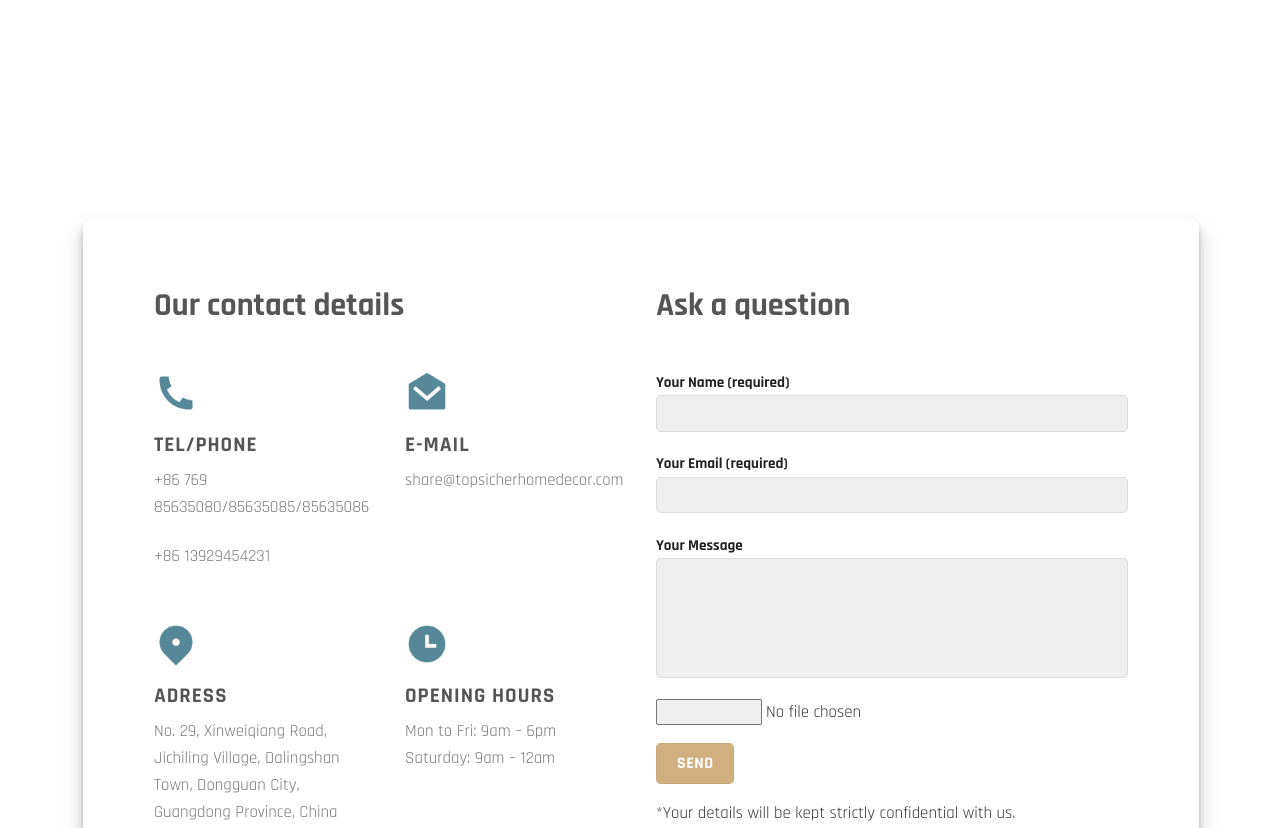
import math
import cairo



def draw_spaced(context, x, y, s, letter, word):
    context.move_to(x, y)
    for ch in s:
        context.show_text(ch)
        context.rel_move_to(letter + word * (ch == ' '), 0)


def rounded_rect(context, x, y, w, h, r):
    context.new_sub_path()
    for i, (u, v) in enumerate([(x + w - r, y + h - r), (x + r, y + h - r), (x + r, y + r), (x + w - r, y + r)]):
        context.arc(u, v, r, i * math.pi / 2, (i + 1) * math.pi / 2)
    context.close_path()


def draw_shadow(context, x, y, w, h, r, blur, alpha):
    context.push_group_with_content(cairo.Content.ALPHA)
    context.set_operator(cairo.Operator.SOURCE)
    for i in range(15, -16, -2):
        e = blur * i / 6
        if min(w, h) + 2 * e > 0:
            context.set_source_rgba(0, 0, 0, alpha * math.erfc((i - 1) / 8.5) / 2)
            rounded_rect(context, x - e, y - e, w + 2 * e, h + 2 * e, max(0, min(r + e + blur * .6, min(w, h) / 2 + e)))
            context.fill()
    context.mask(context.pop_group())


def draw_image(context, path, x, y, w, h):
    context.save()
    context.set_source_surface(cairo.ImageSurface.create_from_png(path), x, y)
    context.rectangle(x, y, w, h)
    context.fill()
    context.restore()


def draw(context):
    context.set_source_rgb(1, 1, 1)
    context.paint()
    context.set_source_rgb(0, 0, 0)
    draw_shadow(context, 83, 225, 1116, 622, 10, 3, 0.22)
    draw_shadow(context, 83, 229, 1116, 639, 10, 10, 0.19)
    context.set_source_rgb(1, 1, 1)
    rounded_rect(context, 83, 219, 1116, 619, 10)
    context.fill()
    draw_image(context, "images/1.png", 159, 376, 34, 34)
    draw_image(context, "images/2.png", 408, 372, 38, 38)
    draw_image(context, "images/3.png", 159, 625, 34, 41)
    draw_image(context, "images/4.png", 408, 625, 38, 38)
    context.set_source_rgb(239 / 255, 239 / 255, 239 / 255)
    rounded_rect(context, 656.5, 395.5, 471, 36, 4.5)
    context.fill_preserve()
    context.set_source_rgb(221 / 255, 221 / 255, 221 / 255)
    context.set_line_width(1)
    context.stroke()
    context.set_source_rgb(239 / 255, 239 / 255, 239 / 255)
    rounded_rect(context, 656.5, 477.5, 471, 35, 4.5)
    context.fill_preserve()
    context.set_source_rgb(221 / 255, 221 / 255, 221 / 255)
    context.stroke()
    context.set_source_rgb(239 / 255, 239 / 255, 239 / 255)
    rounded_rect(context, 656.5, 558.5, 471, 119, 4.5)
    context.fill_preserve()
    context.set_source_rgb(221 / 255, 221 / 255, 221 / 255)
    context.stroke()
    context.set_source_rgb(239 / 255, 239 / 255, 239 / 255)
    rounded_rect(context, 656.5, 699.5, 105, 25, 1.5)
    context.fill_preserve()
    context.set_source_rgb(118 / 255, 118 / 255, 118 / 255)
    context.stroke()
    context.set_source_rgb(209 / 255, 176 / 255, 127 / 255)
    rounded_rect(context, 656, 743, 78, 41, 5)
    context.fill()
    context.rectangle(656.5, 743.5, 77, 40)
    context.set_source_rgba(0, 0, 0, 0.05)
    context.stroke()
    context.select_font_face("Rajdhani", cairo.FontSlant.NORMAL, cairo.FontWeight.BOLD)
    context.set_font_size(32.25)
    context.set_source_rgb(85 / 255, 85 / 255, 85 / 255)
    context.move_to(154, 315)
    context.show_text("Our contact details")
    context.set_font_size(21)
    draw_spaced(context, 154, 451, "TEL/PHONE", 1, 0)
    context.select_font_face("Rajdhani")
    context.set_font_size(16.8)
    context.set_source_rgb(119 / 255, 119 / 255, 119 / 255)
    context.move_to(154, 485)
    context.show_text("+86 769")
    context.move_to(154, 512)
    context.show_text("85635080/85635085/85635086")
    context.move_to(154, 561)
    context.show_text("+86 13929454231")
    context.select_font_face("Rajdhani", cairo.FontSlant.NORMAL, cairo.FontWeight.BOLD)
    context.set_font_size(21)
    context.set_source_rgb(85 / 255, 85 / 255, 85 / 255)
    draw_spaced(context, 405, 451, "E-MAIL", 1, 0)
    context.select_font_face("Rajdhani")
    context.set_font_size(16.8)
    context.set_source_rgb(119 / 255, 119 / 255, 119 / 255)
    context.move_to(405, 485)
    context.show_text("share@topsicherhomedecor.com")
    context.select_font_face("Rajdhani", cairo.FontSlant.NORMAL, cairo.FontWeight.BOLD)
    context.set_font_size(21)
    context.set_source_rgb(85 / 255, 85 / 255, 85 / 255)
    draw_spaced(context, 154, 702, "ADRESS", 1, 0)
    context.select_font_face("Rajdhani")
    context.set_font_size(16.8)
    context.set_source_rgb(119 / 255, 119 / 255, 119 / 255)
    context.move_to(154, 736)
    context.show_text("No. 29, Xinweiqiang Road,")
    context.move_to(154, 763)
    context.show_text("Jichiling Village, Dalingshan")
    context.move_to(154, 790)
    context.show_text("Town, Dongguan City,")
    context.move_to(154, 817)
    context.show_text("Guangdong Province, China")
    context.select_font_face("Rajdhani", cairo.FontSlant.NORMAL, cairo.FontWeight.BOLD)
    context.set_font_size(21)
    context.set_source_rgb(85 / 255, 85 / 255, 85 / 255)
    draw_spaced(context, 405, 702, "OPENING HOURS", 1, 0)
    context.select_font_face("Rajdhani")
    context.set_font_size(16.8)
    context.set_source_rgb(119 / 255, 119 / 255, 119 / 255)
    context.move_to(405, 736)
    context.show_text("Mon to Fri: 9am – 6pm")
    context.move_to(405, 763)
    context.show_text("Saturday: 9am – 12am")
    context.select_font_face("Rajdhani", cairo.FontSlant.NORMAL, cairo.FontWeight.BOLD)
    context.set_font_size(32.25)
    context.set_source_rgb(85 / 255, 85 / 255, 85 / 255)
    context.move_to(656, 315)
    context.show_text("Ask a question")
    context.set_font_size(15.1)
    context.set_source_rgb(34 / 255, 34 / 255, 34 / 255)
    context.move_to(656, 387)
    context.show_text("Your Name (required)")
    context.move_to(656, 468)
    context.show_text("Your Email (required)")
    context.move_to(656, 550)
    context.show_text("Your Message")
    context.select_font_face("Rajdhani")
    context.set_font_size(16.8)
    context.set_source_rgb(51 / 255, 51 / 255, 51 / 255)
    context.move_to(766, 717)
    context.show_text("No file chosen")
    context.select_font_face("Rajdhani", cairo.FontSlant.NORMAL, cairo.FontWeight.BOLD)
    context.set_font_size(16)
    context.set_source_rgb(1, 1, 1)
    draw_spaced(context, 677, 768, "SEND", 0.5, 0)
    context.select_font_face("Rajdhani")
    context.set_font_size(16.8)
    context.set_source_rgb(51 / 255, 51 / 255, 51 / 255)
    context.move_to(656, 818)
    context.show_text("*Your details will be kept strictly confidential with us.")


surface = cairo.ImageSurface(cairo.Format.RGB24, 1282, 828)
context = cairo.Context(surface)
options = cairo.FontOptions()
options.set_hint_metrics(cairo.HintMetrics.OFF)
options.set_hint_style(cairo.HintStyle.NONE)
context.set_font_options(options)
context.set_miter_limit(4)
draw(context)
surface.write_to_png("out.png")
